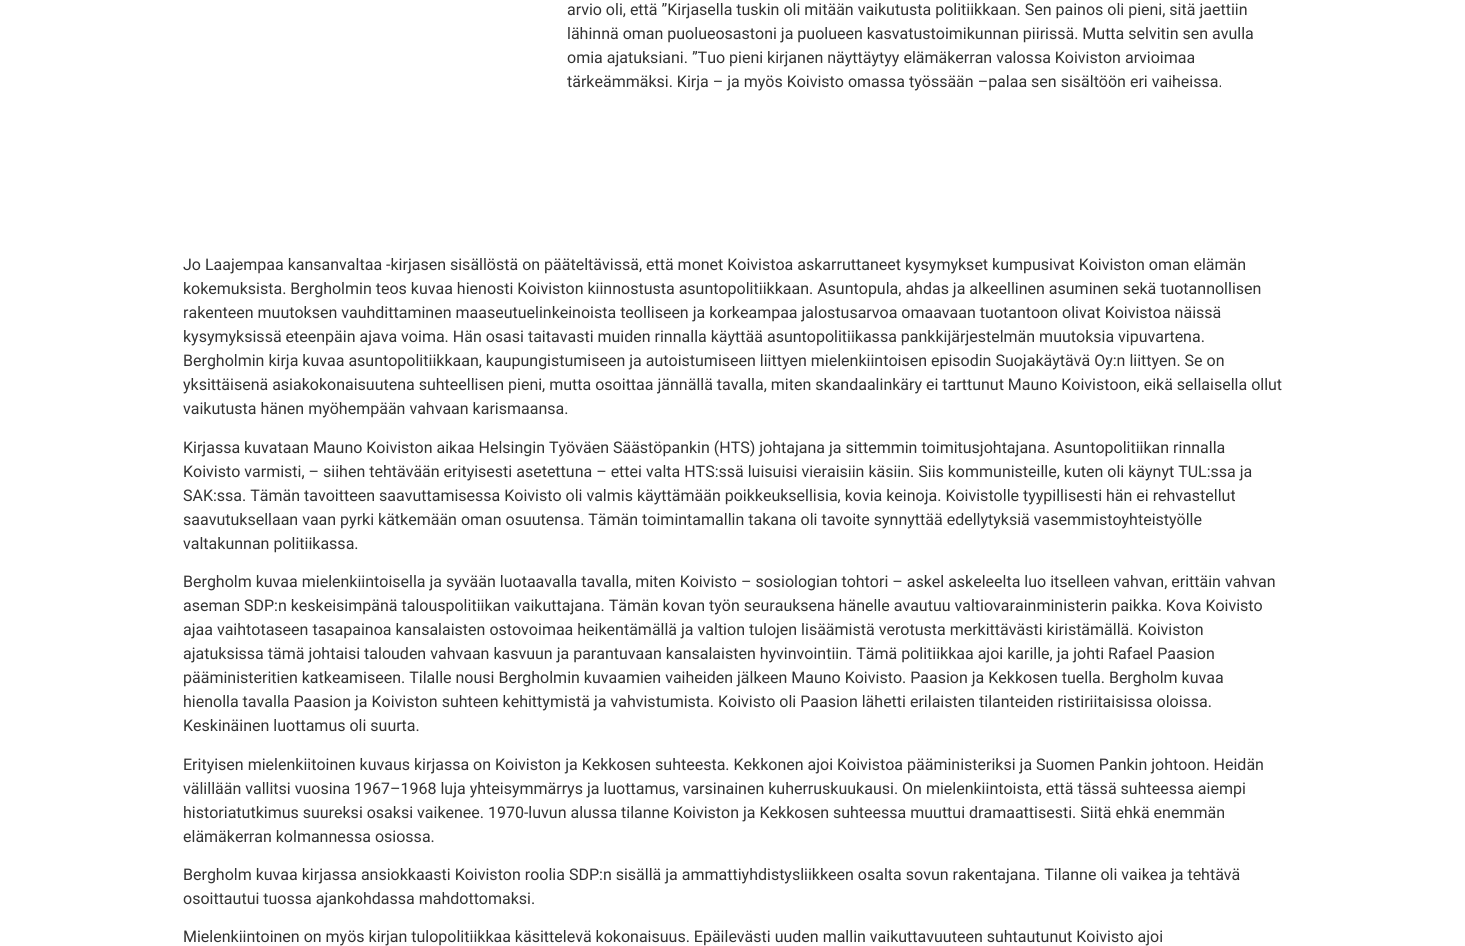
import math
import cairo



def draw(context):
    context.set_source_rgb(1, 1, 1)
    context.paint()
    context.select_font_face("Roboto")
    context.set_font_size(16)
    context.set_source_rgb(51 / 255, 51 / 255, 51 / 255)
    context.move_to(567, 15)
    context.show_text("arvio oli, että ”Kirjasella tuskin oli mitään vaikutusta politiikkaan. Sen painos oli pieni, sitä jaettiin")
    context.move_to(567, 39)
    context.show_text("lähinnä oman puolueosastoni ja puolueen kasvatustoimikunnan piirissä. Mutta selvitin sen avulla")
    context.move_to(567, 63)
    context.show_text("omia ajatuksiani. ”Tuo pieni kirjanen näyttäytyy elämäkerran valossa Koiviston arvioimaa")
    context.move_to(567, 87)
    context.show_text("tärkeämmäksi. Kirja – ja myös Koivisto omassa työssään –palaa sen sisältöön eri vaiheissa.")
    context.move_to(183, 270)
    context.show_text("Jo Laajempaa kansanvaltaa -kirjasen sisällöstä on pääteltävissä, että monet Koivistoa askarruttaneet kysymykset kumpusivat Koiviston oman elämän")
    context.move_to(183, 294)
    context.show_text("kokemuksista. Bergholmin teos kuvaa hienosti Koiviston kiinnostusta asuntopolitiikkaan. Asuntopula, ahdas ja alkeellinen asuminen sekä tuotannollisen")
    context.move_to(183, 318)
    context.show_text("rakenteen muutoksen vauhdittaminen maaseutuelinkeinoista teolliseen ja korkeampaa jalostusarvoa omaavaan tuotantoon olivat Koivistoa näissä")
    context.move_to(183, 342)
    context.show_text("kysymyksissä eteenpäin ajava voima. Hän osasi taitavasti muiden rinnalla käyttää asuntopolitiikassa pankkijärjestelmän muutoksia vipuvartena.")
    context.move_to(183, 366)
    context.show_text("Bergholmin kirja kuvaa asuntopolitiikkaan, kaupungistumiseen ja autoistumiseen liittyen mielenkiintoisen episodin Suojakäytävä Oy:n liittyen. Se on")
    context.move_to(183, 390)
    context.show_text("yksittäisenä asiakokonaisuutena suhteellisen pieni, mutta osoittaa jännällä tavalla, miten skandaalinkäry ei tarttunut Mauno Koivistoon, eikä sellaisella ollut")
    context.move_to(183, 414)
    context.show_text("vaikutusta hänen myöhempään vahvaan karismaansa.")
    context.move_to(183, 453)
    context.show_text("Kirjassa kuvataan Mauno Koiviston aikaa Helsingin Työväen Säästöpankin (HTS) johtajana ja sittemmin toimitusjohtajana. Asuntopolitiikan rinnalla")
    context.move_to(183, 477)
    context.show_text("Koivisto varmisti, – siihen tehtävään erityisesti asetettuna – ettei valta HTS:ssä luisuisi vieraisiin käsiin. Siis kommunisteille, kuten oli käynyt TUL:ssa ja")
    context.move_to(183, 501)
    context.show_text("SAK:ssa. Tämän tavoitteen saavuttamisessa Koivisto oli valmis käyttämään poikkeuksellisia, kovia keinoja. Koivistolle tyypillisesti hän ei rehvastellut")
    context.move_to(183, 525)
    context.show_text("saavutuksellaan vaan pyrki kätkemään oman osuutensa. Tämän toimintamallin takana oli tavoite synnyttää edellytyksiä vasemmistoyhteistyölle")
    context.move_to(183, 549)
    context.show_text("valtakunnan politiikassa.")
    context.move_to(183, 587)
    context.show_text("Bergholm kuvaa mielenkiintoisella ja syvään luotaavalla tavalla, miten Koivisto – sosiologian tohtori – askel askeleelta luo itselleen vahvan, erittäin vahvan")
    context.move_to(183, 611)
    context.show_text("aseman SDP:n keskeisimpänä talouspolitiikan vaikuttajana. Tämän kovan työn seurauksena hänelle avautuu valtiovarainministerin paikka. Kova Koivisto")
    context.move_to(183, 635)
    context.show_text("ajaa vaihtotaseen tasapainoa kansalaisten ostovoimaa heikentämällä ja valtion tulojen lisäämistä verotusta merkittävästi kiristämällä. Koiviston")
    context.move_to(183, 659)
    context.show_text("ajatuksissa tämä johtaisi talouden vahvaan kasvuun ja parantuvaan kansalaisten hyvinvointiin. Tämä politiikkaa ajoi karille, ja johti Rafael Paasion")
    context.move_to(183, 683)
    context.show_text("pääministeritien katkeamiseen. Tilalle nousi Bergholmin kuvaamien vaiheiden jälkeen Mauno Koivisto. Paasion ja Kekkosen tuella. Bergholm kuvaa")
    context.move_to(183, 707)
    context.show_text("hienolla tavalla Paasion ja Koiviston suhteen kehittymistä ja vahvistumista. Koivisto oli Paasion lähetti erilaisten tilanteiden ristiriitaisissa oloissa.")
    context.move_to(183, 731)
    context.show_text("Keskinäinen luottamus oli suurta.")
    context.move_to(183, 770)
    context.show_text("Erityisen mielenkiitoinen kuvaus kirjassa on Koiviston ja Kekkosen suhteesta. Kekkonen ajoi Koivistoa pääministeriksi ja Suomen Pankin johtoon. Heidän")
    context.move_to(183, 794)
    context.show_text("välillään vallitsi vuosina 1967–1968 luja yhteisymmärrys ja luottamus, varsinainen kuherruskuukausi. On mielenkiintoista, että tässä suhteessa aiempi")
    context.move_to(183, 818)
    context.show_text("historiatutkimus suureksi osaksi vaikenee. 1970-luvun alussa tilanne Koiviston ja Kekkosen suhteessa muuttui dramaattisesti. Siitä ehkä enemmän")
    context.move_to(183, 842)
    context.show_text("elämäkerran kolmannessa osiossa.")
    context.move_to(183, 880)
    context.show_text("Bergholm kuvaa kirjassa ansiokkaasti Koiviston roolia SDP:n sisällä ja ammattiyhdistysliikkeen osalta sovun rakentajana. Tilanne oli vaikea ja tehtävä")
    context.move_to(183, 904)
    context.show_text("osoittautui tuossa ajankohdassa mahdottomaksi.")
    context.move_to(183, 942)
    context.show_text("Mielenkiintoinen on myös kirjan tulopolitiikkaa käsittelevä kokonaisuus. Epäilevästi uuden mallin vaikuttavuuteen suhtautunut Koivisto ajoi")


surface = cairo.ImageSurface(cairo.Format.RGB24, 1465, 946)
context = cairo.Context(surface)
options = cairo.FontOptions()
options.set_hint_metrics(cairo.HintMetrics.OFF)
options.set_hint_style(cairo.HintStyle.NONE)
context.set_font_options(options)
context.set_miter_limit(4)
draw(context)
surface.write_to_png("out.png")
